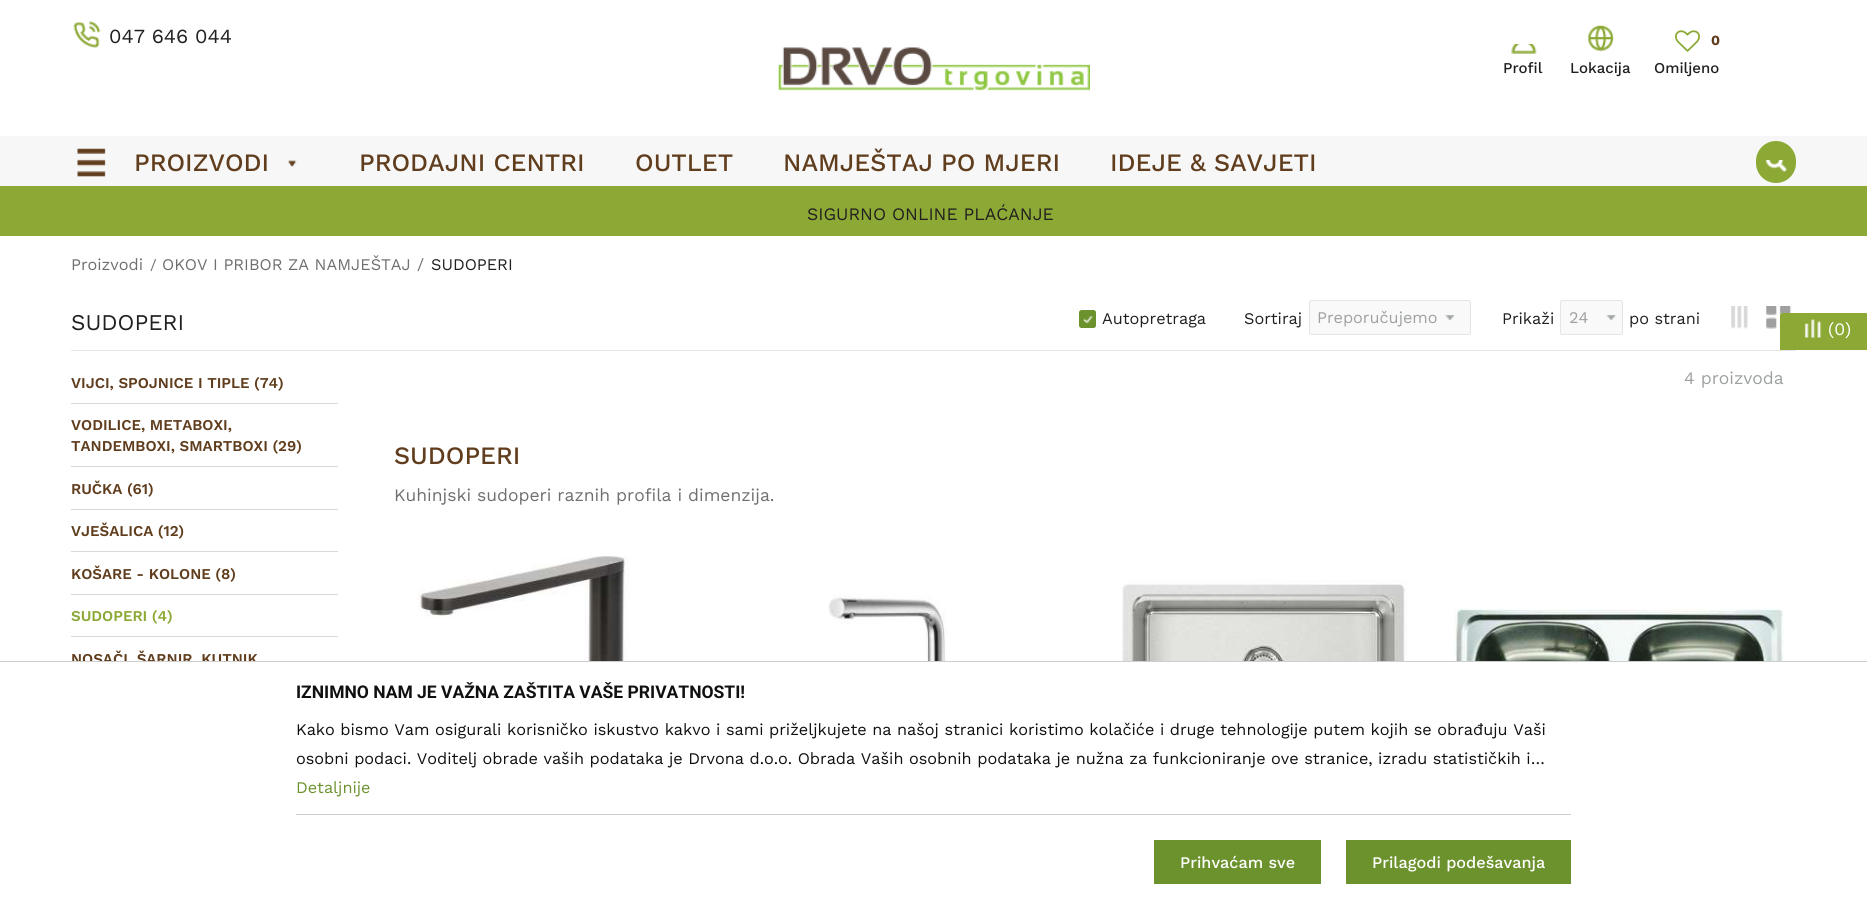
import math
import cairo



def rounded_rect(context, x, y, w, h, r):
    context.new_sub_path()
    for i, (u, v) in enumerate([(x + w - r, y + h - r), (x + r, y + h - r), (x + r, y + r), (x + w - r, y + r)]):
        context.arc(u, v, r, i * math.pi / 2, (i + 1) * math.pi / 2)
    context.close_path()


def draw_image(context, path, x, y, w, h):
    context.save()
    context.set_source_surface(cairo.ImageSurface.create_from_png(path), x, y)
    context.rectangle(x, y, w, h)
    context.fill()
    context.restore()


def draw(context):
    context.set_source_rgb(1, 1, 1)
    context.paint()
    draw_image(context, "images/1.png", 73, 21, 28, 27)
    draw_image(context, "images/2.png", 778, 47, 312, 44)
    draw_image(context, "images/3.png", 1511, 44, 26, 10)
    draw_image(context, "images/4.png", 1588, 25, 26, 27)
    draw_image(context, "images/5.png", 1675, 30, 25, 22)
    context.set_source_rgb(247 / 255, 247 / 255, 247 / 255)
    context.rectangle(0, 136, 1867, 50)
    context.fill()
    draw_image(context, "images/6.png", 77, 148, 29, 29)
    draw_image(context, "images/7.png", 287, 160, 10, 7)
    context.set_source_rgb(140 / 255, 169 / 255, 54 / 255)
    rounded_rect(context, 1756, 141, 40, 42, 20)
    context.fill()
    draw_image(context, "images/8.png", 1765, 160, 23, 13)
    context.rectangle(0, 186, 1867, 50)
    context.fill()
    context.set_source_rgb(229 / 255, 229 / 255, 228 / 255)
    context.rectangle(71, 350, 1725, 1)
    context.fill()
    context.set_source_rgb(108 / 255, 146 / 255, 45 / 255)
    rounded_rect(context, 1079, 310, 17, 18, 2.5)
    context.fill()
    draw_image(context, "images/9.png", 1083, 316, 10, 8)
    context.set_source_rgb(249 / 255, 249 / 255, 249 / 255)
    rounded_rect(context, 1309, 300, 162, 35, 2.5)
    context.fill()
    draw_image(context, "images/10.png", 1445, 315, 10, 5)
    rounded_rect(context, 1309.5, 300.5, 161, 34, 2)
    context.set_source_rgb(229 / 255, 229 / 255, 228 / 255)
    context.set_line_width(1)
    context.stroke()
    context.set_source_rgb(249 / 255, 249 / 255, 249 / 255)
    rounded_rect(context, 1560, 300, 63, 35, 2.5)
    context.fill()
    draw_image(context, "images/11.png", 1606, 315, 10, 5)
    rounded_rect(context, 1560.5, 300.5, 62, 34, 2)
    context.set_source_rgb(229 / 255, 229 / 255, 228 / 255)
    context.stroke()
    draw_image(context, "images/12.png", 1731, 306, 17, 23)
    draw_image(context, "images/13.png", 1766, 306, 26, 23)
    context.set_source_rgb(217 / 255, 217 / 255, 217 / 255)
    context.rectangle(71, 403, 267, 1)
    context.fill()
    context.rectangle(71, 466, 267, 1)
    context.fill()
    context.rectangle(71, 509, 267, 1)
    context.fill()
    context.rectangle(71, 551, 267, 1)
    context.fill()
    context.rectangle(71, 594, 267, 1)
    context.fill()
    context.rectangle(71, 636, 267, 1)
    context.fill()
    draw_image(context, "images/14.png", 417, 556, 257, 105)
    draw_image(context, "images/15.png", 828, 594, 164, 67)
    draw_image(context, "images/16.png", 1122, 579, 286, 82)
    draw_image(context, "images/17.png", 1454, 608, 330, 53)
    context.set_source_rgb(140 / 255, 169 / 255, 54 / 255)
    context.new_path()
    context.move_to(1782.5, 313)
    context.line_to(1865.5, 313)
    context.curve_to(1867, 313, 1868, 314, 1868, 315.5)
    context.line_to(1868, 350)
    context.line_to(1780, 350)
    context.line_to(1780, 315.5)
    context.curve_to(1780, 314, 1781, 313, 1782.5, 313)
    context.close_path()
    context.fill()
    draw_image(context, "images/18.png", 1804, 319, 18, 19)
    context.set_source_rgb(206 / 255, 206 / 255, 206 / 255)
    context.rectangle(296, 814, 1275, 1)
    context.fill()
    context.set_source_rgb(108 / 255, 146 / 255, 45 / 255)
    context.rectangle(1154, 840, 167, 44)
    context.fill()
    context.rectangle(1346, 840, 225, 44)
    context.fill()
    context.select_font_face("Work Sans")
    context.set_font_size(20)
    context.set_source_rgb(34 / 255, 31 / 255, 31 / 255)
    context.move_to(109, 43)
    context.show_text("047 646 044")
    context.select_font_face("Work Sans Medium")
    context.set_font_size(15)
    context.move_to(1503, 73)
    context.show_text("Profil")
    context.move_to(1570, 73)
    context.show_text("Lokacija")
    context.select_font_face("Work Sans", cairo.FontSlant.NORMAL, cairo.FontWeight.BOLD)
    context.set_font_size(14)
    context.set_source_rgb(96 / 255, 61 / 255, 29 / 255)
    context.move_to(1711, 45)
    context.show_text("0")
    context.select_font_face("Work Sans Medium")
    context.set_font_size(15)
    context.set_source_rgb(34 / 255, 31 / 255, 31 / 255)
    context.move_to(1654, 73)
    context.show_text("Omiljeno")
    context.set_font_size(25)
    context.set_source_rgb(96 / 255, 61 / 255, 29 / 255)
    context.move_to(134, 171)
    context.show_text("PROIZVODI")
    context.move_to(359, 171)
    context.show_text("PRODAJNI CENTRI")
    context.move_to(635, 171)
    context.show_text("OUTLET")
    context.move_to(783, 171)
    context.show_text("NAMJEŠTAJ PO MJERI")
    context.move_to(1110, 171)
    context.show_text("IDEJE & SAVJETI")
    context.select_font_face("Work Sans")
    context.set_font_size(17.5)
    context.set_source_rgb(34 / 255, 31 / 255, 31 / 255)
    context.move_to(807, 220)
    context.show_text("SIGURNO ONLINE PLAĆANJE")
    context.set_font_size(16.25)
    context.set_source_rgb(109 / 255, 111 / 255, 112 / 255)
    context.move_to(71, 270)
    context.show_text("Proizvodi")
    context.set_font_size(15)
    context.move_to(150, 270)
    context.show_text("/")
    context.set_font_size(16.25)
    context.move_to(162, 270)
    context.show_text("OKOV I PRIBOR ZA NAMJEŠTAJ")
    context.move_to(417, 270)
    context.show_text("/")
    context.set_source_rgb(34 / 255, 31 / 255, 31 / 255)
    context.move_to(431, 270)
    context.show_text("SUDOPERI")
    context.set_font_size(22.5)
    context.move_to(71, 330)
    context.show_text("SUDOPERI")
    context.set_font_size(16.25)
    context.move_to(1102, 324)
    context.show_text("Autopretraga")
    context.move_to(1244, 324)
    context.show_text("Sortiraj")
    context.set_source_rgb(158 / 255, 161 / 255, 161 / 255)
    context.move_to(1317, 323)
    context.show_text("Preporučujemo")
    context.set_source_rgb(34 / 255, 31 / 255, 31 / 255)
    context.move_to(1502, 324)
    context.show_text("Prikaži")
    context.set_source_rgb(158 / 255, 161 / 255, 161 / 255)
    context.move_to(1569, 323)
    context.show_text("24")
    context.set_source_rgb(34 / 255, 31 / 255, 31 / 255)
    context.move_to(1629, 324)
    context.show_text("po strani")
    context.select_font_face("Work Sans SemiBold")
    context.set_font_size(15)
    context.set_source_rgb(96 / 255, 61 / 255, 29 / 255)
    context.move_to(71, 388)
    context.show_text("VIJCI, SPOJNICE I TIPLE (74)")
    context.move_to(71, 430)
    context.show_text("VODILICE, METABOXI,")
    context.move_to(71, 451)
    context.show_text("TANDEMBOXI, SMARTBOXI (29)")
    context.move_to(71, 494)
    context.show_text("RUČKA (61)")
    context.move_to(71, 536)
    context.show_text("VJEŠALICA (12)")
    context.move_to(71, 579)
    context.show_text("KOŠARE - KOLONE (8)")
    context.set_source_rgb(140 / 255, 169 / 255, 54 / 255)
    context.move_to(71, 621)
    context.show_text("SUDOPERI (4)")
    context.set_source_rgb(96 / 255, 61 / 255, 29 / 255)
    context.move_to(71, 664)
    context.show_text("NOSAČI, ŠARNIR, KUTNIK")
    context.select_font_face("Work Sans")
    context.set_font_size(17.5)
    context.set_source_rgb(158 / 255, 161 / 255, 161 / 255)
    context.move_to(1684, 384)
    context.show_text("4 proizvoda")
    context.select_font_face("Work Sans Medium")
    context.set_font_size(25)
    context.set_source_rgb(96 / 255, 61 / 255, 29 / 255)
    context.move_to(394, 464)
    context.show_text("SUDOPERI")
    context.select_font_face("Work Sans")
    context.set_font_size(17.5)
    context.set_source_rgb(109 / 255, 111 / 255, 112 / 255)
    context.move_to(394, 501)
    context.show_text("Kuhinjski sudoperi raznih profila i dimenzija.")
    context.set_source_rgb(1, 1, 1)
    context.move_to(1828, 335)
    context.show_text("(0)")
    context.rectangle(72, 662, 186, 5)
    context.fill()
    context.set_source_rgb(206 / 255, 206 / 255, 206 / 255)
    context.rectangle(0, 661, 1867, 1)
    context.fill()
    context.select_font_face("Roboto", cairo.FontSlant.NORMAL, cairo.FontWeight.BOLD)
    context.set_source_rgb(17 / 255, 16 / 255, 16 / 255)
    context.move_to(296, 698)
    context.show_text("IZNIMNO NAM JE VAŽNA ZAŠTITA VAŠE PRIVATNOSTI!")
    context.select_font_face("Work Sans")
    context.set_font_size(16.25)
    context.move_to(296, 735)
    context.show_text("Kako bismo Vam osigurali korisničko iskustvo kakvo i sami priželjkujete na našoj stranici koristimo kolačiće i druge tehnologije putem kojih se obrađuju Vaši")
    context.move_to(296, 764)
    context.show_text("osobni podaci. Voditelj obrade vaših podataka je Drvona d.o.o. Obrada Vaših osobnih podataka je nužna za funkcioniranje ove stranice, izradu statističkih i…")
    context.set_source_rgb(108 / 255, 146 / 255, 45 / 255)
    context.move_to(296, 793)
    context.show_text("Detaljnije")
    context.select_font_face("Work Sans Medium")
    context.set_source_rgb(1, 1, 1)
    context.move_to(1180, 868)
    context.show_text("Prihvaćam sve")
    context.move_to(1372, 868)
    context.show_text("Prilagodi podešavanja")


surface = cairo.ImageSurface(cairo.Format.RGB24, 1867, 905)
context = cairo.Context(surface)
options = cairo.FontOptions()
options.set_hint_metrics(cairo.HintMetrics.OFF)
options.set_hint_style(cairo.HintStyle.NONE)
context.set_font_options(options)
context.set_miter_limit(4)
draw(context)
surface.write_to_png("out.png")
